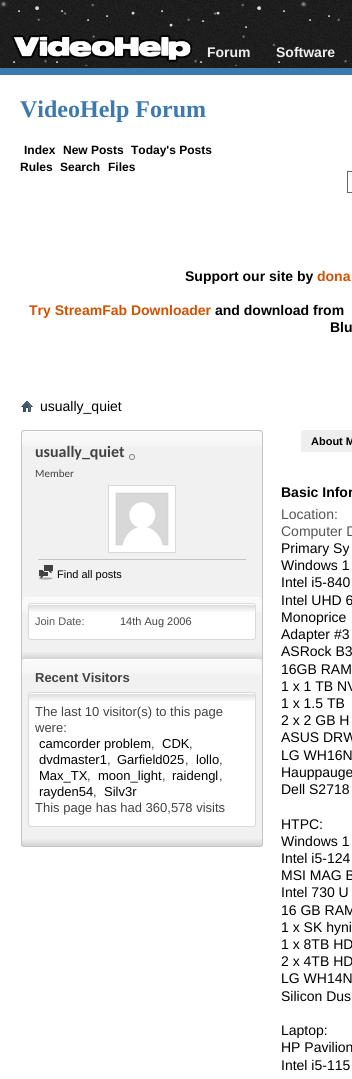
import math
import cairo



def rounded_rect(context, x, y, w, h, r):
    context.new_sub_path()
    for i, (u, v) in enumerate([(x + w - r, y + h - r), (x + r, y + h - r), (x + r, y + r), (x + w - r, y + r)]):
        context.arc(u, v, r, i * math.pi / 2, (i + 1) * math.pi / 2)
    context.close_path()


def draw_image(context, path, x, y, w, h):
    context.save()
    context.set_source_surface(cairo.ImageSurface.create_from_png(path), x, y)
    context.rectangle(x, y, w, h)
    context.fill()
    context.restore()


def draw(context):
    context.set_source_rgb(34 / 255, 34 / 255, 34 / 255)
    context.paint()
    draw_image(context, "images/2.png", 0, 0, 352, 68)
    draw_image(context, "images/1.png", 0, 1, 347, 65)
    context.set_source_rgb(60 / 255, 121 / 255, 174 / 255)
    context.rectangle(0, 68, 352, 7)
    context.fill()
    draw_image(context, "images/3.png", 12, 34, 180, 28)
    context.set_source_rgb(1, 1, 1)
    context.rectangle(0, 75, 352, 1004)
    context.fill()
    context.rectangle(347.5, 171.5, 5, 21)
    context.set_source_rgb(102 / 255, 102 / 255, 102 / 255)
    context.set_line_width(1)
    context.stroke()
    draw_image(context, "images/4.png", 21, 401, 12, 11)
    context.set_source_rgb(241 / 255, 241 / 255, 241 / 255)
    rounded_rect(context, 21.5, 430.5, 241, 416, 2.5)
    context.fill_preserve()
    context.set_source_rgb(196 / 255, 196 / 255, 196 / 255)
    context.stroke()
    draw_image(context, "images/5.png", 22, 431, 240, 15)
    draw_image(context, "images/6.png", 129, 454, 6, 6)
    context.rectangle(110.5, 487.5, 63, 63)
    context.set_source_rgb(1, 1, 1)
    context.set_line_width(3)
    context.stroke()
    draw_image(context, "images/7.png", 112, 489, 60, 60)
    context.rectangle(108.5, 485.5, 67, 67)
    context.set_source_rgb(217 / 255, 217 / 255, 217 / 255)
    context.set_line_width(1)
    context.stroke()
    context.set_source_rgb(196 / 255, 196 / 255, 196 / 255)
    context.rectangle(38, 559, 208, 1)
    context.fill()
    draw_image(context, "images/8.png", 38, 565, 15, 15)
    draw_image(context, "images/9.png", 22, 597, 240, 15)
    context.set_source_rgb(1, 1, 1)
    rounded_rect(context, 28.5, 603.5, 227, 36, 2.5)
    context.fill_preserve()
    context.set_source_rgb(218 / 255, 218 / 255, 218 / 255)
    context.stroke()
    draw_image(context, "images/10.png", 29, 605, 226, 7)
    context.set_source_rgb(1, 1, 1)
    context.rectangle(253, 604, 1, 1)
    context.fill()
    draw_image(context, "images/11.png", 22, 652, 240, 7)
    draw_image(context, "images/9.png", 22, 659, 240, 15)
    rounded_rect(context, 28.5, 692.5, 227, 134, 2.5)
    context.fill_preserve()
    context.set_source_rgb(218 / 255, 218 / 255, 218 / 255)
    context.stroke()
    draw_image(context, "images/10.png", 29, 694, 226, 7)
    context.set_source_rgb(1, 1, 1)
    context.rectangle(253, 693, 1, 1)
    context.fill()
    draw_image(context, "images/12.png", 22, 839, 240, 7)
    context.set_source_rgb(238 / 255, 238 / 255, 238 / 255)
    context.new_path()
    context.move_to(304, 430)
    context.line_to(352, 430)
    context.curve_to(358, 430, 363, 435, 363, 441)
    context.line_to(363, 452)
    context.line_to(301, 452)
    context.line_to(301, 433)
    context.curve_to(301, 431.5, 302.5, 430, 304, 430)
    context.close_path()
    context.fill()
    context.select_font_face("Liberation Sans", cairo.FontSlant.NORMAL, cairo.FontWeight.BOLD)
    context.set_font_size(14)
    context.move_to(207, 57)
    context.show_text("Forum")
    context.move_to(276, 57)
    context.show_text("Software")
    context.select_font_face("Liberation Serif", cairo.FontSlant.NORMAL, cairo.FontWeight.BOLD)
    context.set_font_size(24)
    context.set_source_rgb(60 / 255, 121 / 255, 174 / 255)
    context.move_to(20, 117)
    context.show_text("VideoHelp Forum")
    context.select_font_face("Liberation Sans", cairo.FontSlant.NORMAL, cairo.FontWeight.BOLD)
    context.set_font_size(12)
    context.set_source_rgb(0, 0, 0)
    context.move_to(24, 154)
    context.show_text("Index")
    context.move_to(63, 154)
    context.show_text("New Posts")
    context.move_to(131, 154)
    context.show_text("Today's Posts")
    context.move_to(20, 171)
    context.show_text("Rules")
    context.move_to(60, 171)
    context.show_text("Search")
    context.move_to(108, 171)
    context.show_text("Files")
    context.set_font_size(14)
    context.move_to(185, 281)
    context.show_text("Support our site by")
    context.set_source_rgb(211 / 255, 81 / 255, 0)
    context.move_to(317, 281)
    context.show_text("dona")
    context.move_to(29, 315)
    context.show_text("Try StreamFab Downloader")
    context.set_source_rgb(0, 0, 0)
    context.move_to(215, 315)
    context.show_text("and download from")
    context.move_to(330, 332)
    context.show_text("Blu")
    context.select_font_face("Liberation Sans")
    context.move_to(40, 411)
    context.show_text("usually_quiet")
    context.select_font_face("Carlito", cairo.FontSlant.NORMAL, cairo.FontWeight.BOLD)
    context.set_font_size(16)
    context.set_source_rgb(66 / 255, 66 / 255, 66 / 255)
    context.move_to(35, 457)
    context.show_text("usually_quiet")
    context.select_font_face("Carlito")
    context.set_font_size(11)
    context.move_to(35, 477)
    context.show_text("Member")
    context.select_font_face("Liberation Sans")
    context.set_source_rgb(0, 0, 0)
    context.move_to(57, 578)
    context.show_text("Find all posts")
    context.set_source_rgb(85 / 255, 85 / 255, 85 / 255)
    context.move_to(35, 625)
    context.show_text("Join Date:")
    context.set_source_rgb(66 / 255, 66 / 255, 66 / 255)
    context.move_to(120, 625)
    context.show_text("14th Aug 2006")
    context.select_font_face("Liberation Sans", cairo.FontSlant.NORMAL, cairo.FontWeight.BOLD)
    context.set_font_size(13)
    context.move_to(35, 682)
    context.show_text("Recent Visitors")
    context.select_font_face("Liberation Sans")
    context.move_to(35, 716)
    context.show_text("The last 10 visitor(s) to this page")
    context.move_to(35, 732)
    context.show_text("were:")
    context.set_source_rgb(0, 0, 0)
    context.move_to(39, 748)
    context.show_text("camcorder problem")
    context.set_source_rgb(66 / 255, 66 / 255, 66 / 255)
    context.move_to(151, 748)
    context.show_text(",")
    context.set_source_rgb(0, 0, 0)
    context.move_to(162, 748)
    context.show_text("CDK")
    context.set_source_rgb(66 / 255, 66 / 255, 66 / 255)
    context.move_to(189, 748)
    context.show_text(",")
    context.set_source_rgb(0, 0, 0)
    context.move_to(39, 764)
    context.show_text("dvdmaster1")
    context.set_source_rgb(66 / 255, 66 / 255, 66 / 255)
    context.move_to(107, 764)
    context.show_text(",")
    context.set_source_rgb(0, 0, 0)
    context.move_to(117, 764)
    context.show_text("Garfield025")
    context.set_source_rgb(66 / 255, 66 / 255, 66 / 255)
    context.move_to(185, 764)
    context.show_text(",")
    context.set_source_rgb(0, 0, 0)
    context.move_to(196, 764)
    context.show_text("lollo")
    context.set_source_rgb(66 / 255, 66 / 255, 66 / 255)
    context.move_to(219, 764)
    context.show_text(",")
    context.set_source_rgb(0, 0, 0)
    context.move_to(39, 780)
    context.show_text("Max_TX")
    context.set_source_rgb(66 / 255, 66 / 255, 66 / 255)
    context.move_to(87, 780)
    context.show_text(",")
    context.set_source_rgb(0, 0, 0)
    context.move_to(98, 780)
    context.show_text("moon_light")
    context.set_source_rgb(66 / 255, 66 / 255, 66 / 255)
    context.move_to(162, 780)
    context.show_text(",")
    context.set_source_rgb(0, 0, 0)
    context.move_to(172, 780)
    context.show_text("raidengl")
    context.set_source_rgb(66 / 255, 66 / 255, 66 / 255)
    context.move_to(219, 780)
    context.show_text(",")
    context.set_source_rgb(0, 0, 0)
    context.move_to(39, 796)
    context.show_text("rayden54")
    context.set_source_rgb(66 / 255, 66 / 255, 66 / 255)
    context.move_to(93, 796)
    context.show_text(",")
    context.set_source_rgb(0, 0, 0)
    context.move_to(104, 796)
    context.show_text("Silv3r")
    context.set_source_rgb(66 / 255, 66 / 255, 66 / 255)
    context.move_to(35, 812)
    context.show_text("This page has had 360,578 visits")
    context.select_font_face("Liberation Sans", cairo.FontSlant.NORMAL, cairo.FontWeight.BOLD)
    context.set_font_size(11)
    context.set_source_rgb(0, 0, 0)
    context.move_to(311, 445)
    context.show_text("About M")
    context.set_font_size(14)
    context.move_to(281, 497)
    context.show_text("Basic Infor")
    context.select_font_face("Liberation Sans")
    context.set_source_rgb(85 / 255, 85 / 255, 85 / 255)
    context.move_to(281, 519)
    context.show_text("Location:")
    context.move_to(281, 536)
    context.show_text("Computer D")
    context.set_source_rgb(0, 0, 0)
    context.move_to(281, 553)
    context.show_text("Primary Sy")
    context.move_to(281, 570)
    context.show_text("Windows 1")
    context.move_to(281, 587)
    context.show_text("Intel i5-840")
    context.move_to(281, 605)
    context.show_text("Intel UHD 6")
    context.move_to(281, 622)
    context.show_text("Monoprice")
    context.move_to(281, 639)
    context.show_text("Adapter #3")
    context.move_to(281, 656)
    context.show_text("ASRock B3")
    context.move_to(281, 674)
    context.show_text("16GB RAM")
    context.move_to(281, 691)
    context.show_text("1 x 1 TB NV")
    context.move_to(281, 708)
    context.show_text("1 x 1.5 TB")
    context.move_to(281, 725)
    context.show_text("2 x 2 GB H")
    context.move_to(281, 742)
    context.show_text("ASUS DRW")
    context.move_to(281, 760)
    context.show_text("LG WH16N")
    context.move_to(281, 777)
    context.show_text("Hauppauge")
    context.move_to(281, 794)
    context.show_text("Dell S2718")
    context.move_to(281, 829)
    context.show_text("HTPC:")
    context.move_to(281, 846)
    context.show_text("Windows 1")
    context.move_to(281, 863)
    context.show_text("Intel i5-124")
    context.move_to(281, 880)
    context.show_text("MSI MAG B")
    context.move_to(281, 897)
    context.show_text("Intel 730 U")
    context.move_to(281, 915)
    context.show_text("16 GB RAM")
    context.move_to(281, 932)
    context.show_text("1 x SK hyni")
    context.move_to(281, 949)
    context.show_text("1 x 8TB HD")
    context.move_to(281, 966)
    context.show_text("2 x 4TB HD")
    context.move_to(281, 983)
    context.show_text("LG WH14N")
    context.move_to(281, 1001)
    context.show_text("Silicon Dus")
    context.move_to(281, 1035)
    context.show_text("Laptop:")
    context.move_to(281, 1052)
    context.show_text("HP Pavilion")
    context.move_to(281, 1070)
    context.show_text("Intel i5-115")


surface = cairo.ImageSurface(cairo.Format.RGB24, 352, 1079)
context = cairo.Context(surface)
options = cairo.FontOptions()
options.set_hint_metrics(cairo.HintMetrics.OFF)
options.set_hint_style(cairo.HintStyle.NONE)
context.set_font_options(options)
context.set_miter_limit(4)
draw(context)
surface.write_to_png("out.png")
